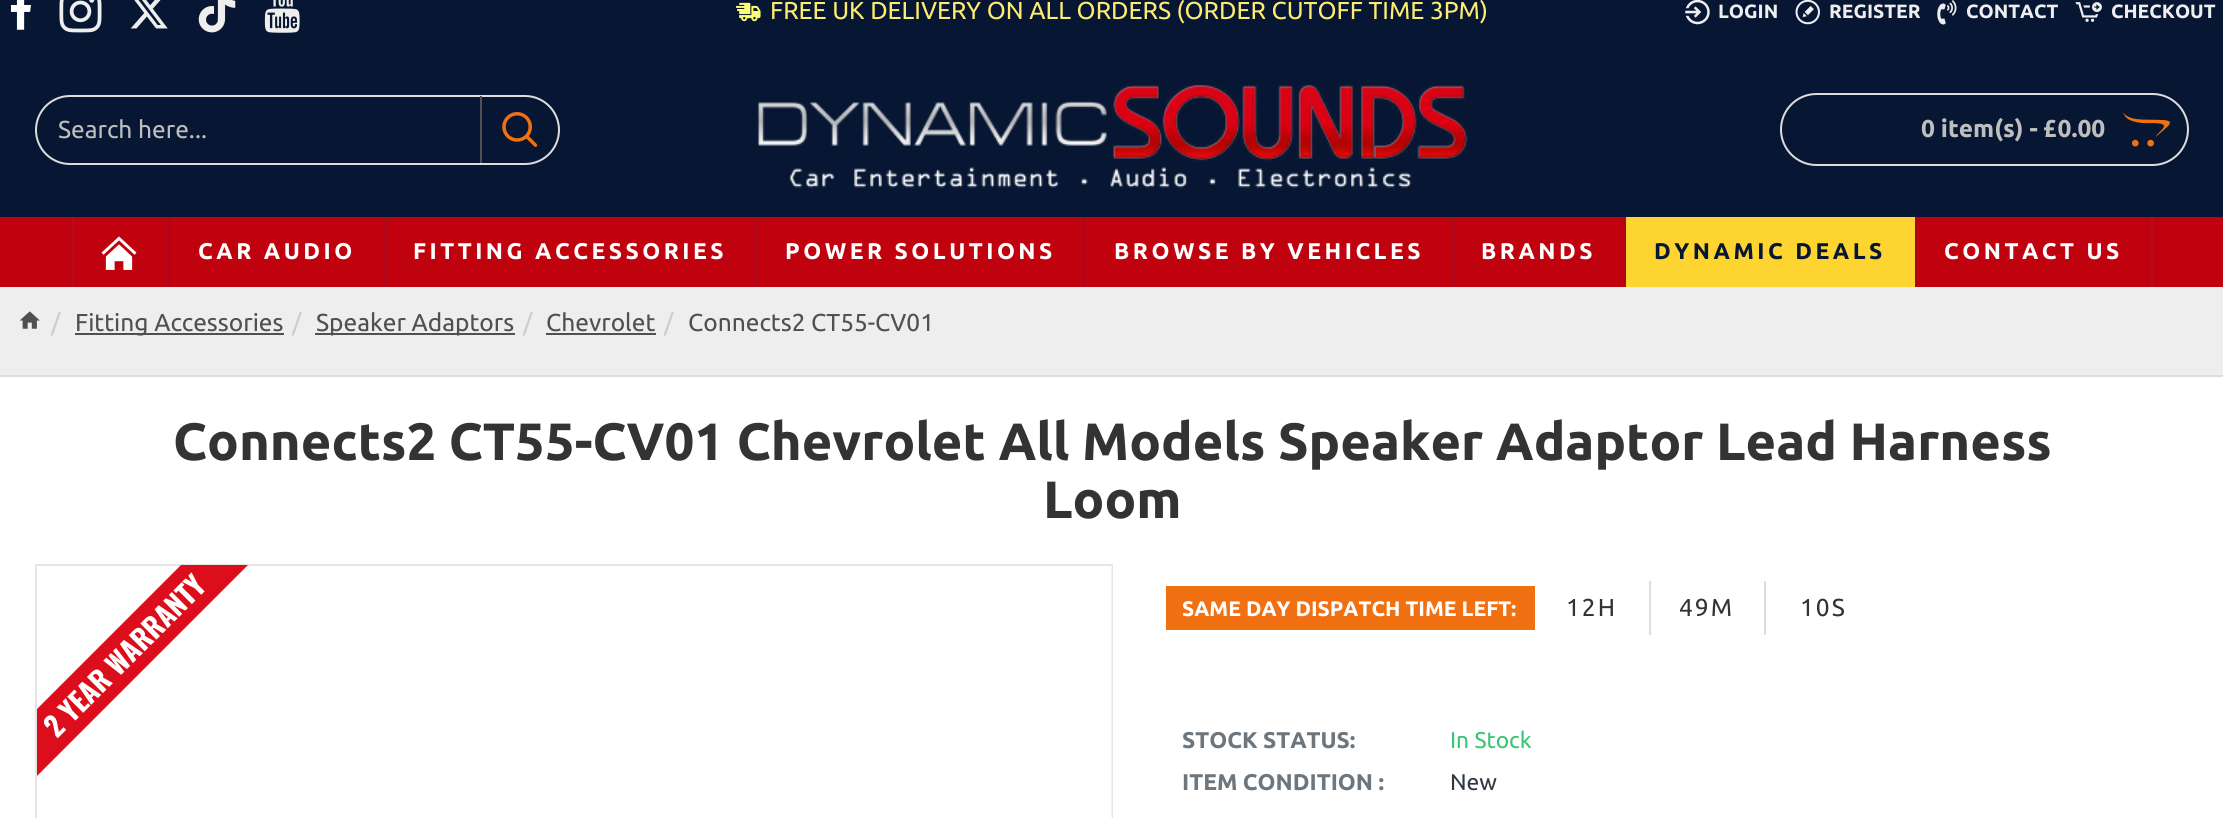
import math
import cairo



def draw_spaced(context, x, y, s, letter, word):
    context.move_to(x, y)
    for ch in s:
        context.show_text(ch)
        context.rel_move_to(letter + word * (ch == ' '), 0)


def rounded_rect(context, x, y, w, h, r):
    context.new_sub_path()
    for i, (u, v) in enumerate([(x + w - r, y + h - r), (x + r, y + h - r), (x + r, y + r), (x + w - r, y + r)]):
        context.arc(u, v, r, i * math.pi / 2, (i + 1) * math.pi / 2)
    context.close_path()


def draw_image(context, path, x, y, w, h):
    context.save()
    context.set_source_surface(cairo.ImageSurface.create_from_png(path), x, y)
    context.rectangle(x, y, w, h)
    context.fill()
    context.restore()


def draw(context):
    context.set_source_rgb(1, 1, 1)
    context.paint()
    context.set_source_rgb(7 / 255, 22 / 255, 51 / 255)
    context.rectangle(0, 0, 2223, 217)
    context.fill()
    draw_image(context, "images/1.png", 10, 0, 21, 30)
    draw_image(context, "images/2.png", 59, 0, 43, 33)
    draw_image(context, "images/3.png", 130, 0, 38, 29)
    draw_image(context, "images/4.png", 198, 0, 38, 33)
    draw_image(context, "images/5.png", 264, 0, 36, 33)
    draw_image(context, "images/6.png", 736, 2, 25, 20)
    draw_image(context, "images/7.png", 1685, 0, 25, 25)
    draw_image(context, "images/8.png", 1795, 0, 25, 25)
    draw_image(context, "images/9.png", 1937, 0, 20, 25)
    draw_image(context, "images/10.png", 2075, 2, 27, 20)
    rounded_rect(context, 36, 96, 523, 68, 34)
    context.set_source_rgb(221 / 255, 221 / 255, 221 / 255)
    context.stroke()
    context.set_source_rgb(80 / 255, 80 / 255, 80 / 255)
    context.rectangle(480, 96, 2, 67)
    context.fill()
    draw_image(context, "images/11.png", 502, 112, 36, 35)
    draw_image(context, "images/12.png", 757, 85, 711, 103)
    rounded_rect(context, 1781, 94, 407, 71, 35.5)
    context.set_source_rgb(221 / 255, 221 / 255, 221 / 255)
    context.stroke()
    draw_image(context, "images/13.png", 2122, 112, 48, 35)
    context.set_source_rgb(192 / 255, 2 / 255, 15 / 255)
    context.rectangle(0, 217, 2223, 70)
    context.fill()
    context.set_source_rgb(185 / 255, 9 / 255, 30 / 255)
    context.rectangle(2151, 217, 2, 70)
    context.fill()
    context.rectangle(72, 217, 2, 70)
    context.fill()
    draw_image(context, "images/14.png", 101, 236, 36, 34)
    context.set_source_rgb(168 / 255, 8 / 255, 27 / 255)
    context.rectangle(168, 217, 2, 70)
    context.fill()
    context.rectangle(383, 217, 2, 70)
    context.fill()
    context.rectangle(756, 217, 2, 70)
    context.fill()
    context.rectangle(1083, 217, 2, 70)
    context.fill()
    context.rectangle(1453, 217, 2, 70)
    context.fill()
    context.set_source_rgb(254 / 255, 212 / 255, 48 / 255)
    context.rectangle(1626, 217, 289, 70)
    context.fill()
    context.set_source_rgb(168 / 255, 8 / 255, 27 / 255)
    context.rectangle(1624, 217, 2, 70)
    context.fill()
    context.rectangle(1915, 217, 2, 70)
    context.fill()
    context.set_source_rgb(238 / 255, 238 / 255, 238 / 255)
    context.rectangle(0, 287, 2223, 88)
    context.fill()
    context.set_source_rgb(221 / 255, 221 / 255, 221 / 255)
    context.rectangle(0, 375, 2223, 2)
    context.fill()
    draw_image(context, "images/15.png", 19, 311, 21, 18)
    context.set_source_rgb(80 / 255, 80 / 255, 80 / 255)
    context.rectangle(75, 333, 209, 2)
    context.fill()
    context.rectangle(315, 333, 200, 2)
    context.fill()
    context.rectangle(546, 333, 110, 2)
    context.fill()
    context.rectangle(36, 565, 1076, 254)
    context.set_source_rgb(230 / 255, 230 / 255, 230 / 255)
    context.stroke()
    context.save()
    context.rectangle(37, 565, 1074, 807)
    context.clip()
    context.set_source_rgb(221 / 255, 14 / 255, 28 / 255)
    context.new_path()
    context.move_to(-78, 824)
    context.line_to(293, 453)
    context.line_to(327, 486)
    context.line_to(-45, 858)
    context.close_path()
    context.fill()
    context.restore()
    context.set_source_rgb(243 / 255, 243 / 255, 243 / 255)
    context.rectangle(1111, 566, 1, 252)
    context.fill()
    context.set_source_rgb(241 / 255, 112 / 255, 17 / 255)
    context.rectangle(1166, 586, 369, 44)
    context.fill()
    context.set_source_rgb(222 / 255, 222 / 255, 222 / 255)
    context.rectangle(1649, 581, 2, 54)
    context.fill()
    context.rectangle(1764, 581, 2, 54)
    context.fill()
    context.select_font_face("Ubuntu")
    context.set_font_size(24.5)
    context.set_source_rgb(254 / 255, 236 / 255, 112 / 255)
    context.move_to(770, 19)
    context.show_text("FREE UK DELIVERY ON ALL ORDERS (ORDER CUTOFF TIME 3PM)")
    context.select_font_face("Ubuntu", cairo.FontSlant.NORMAL, cairo.FontWeight.BOLD)
    context.set_font_size(19.25)
    context.set_source_rgb(238 / 255, 238 / 255, 238 / 255)
    context.move_to(1718, 18)
    context.show_text("LOGIN")
    context.move_to(1829, 18)
    context.show_text("REGISTER")
    context.move_to(1966, 18)
    context.show_text("CONTACT")
    context.move_to(2111, 18)
    context.show_text("CHECKOUT")
    context.select_font_face("Ubuntu")
    context.set_font_size(24.5)
    context.set_source_rgb(190 / 255, 190 / 255, 190 / 255)
    context.move_to(58, 138)
    context.show_text("Search here...")
    context.select_font_face("Ubuntu", cairo.FontSlant.NORMAL, cairo.FontWeight.BOLD)
    context.move_to(1921, 137)
    context.show_text("0 item(s) - £0.00")
    context.set_font_size(22.75)
    context.set_source_rgb(1, 1, 1)
    draw_spaced(context, 198, 259, "CAR AUDIO", 3.5, 0)
    draw_spaced(context, 413, 259, "FITTING ACCESSORIES", 3.5, 0)
    draw_spaced(context, 785, 259, "POWER SOLUTIONS", 3.5, 0)
    draw_spaced(context, 1114, 259, "BROWSE BY VEHICLES", 3.5, 0)
    draw_spaced(context, 1481, 259, "BRANDS", 3.5, 0)
    context.set_source_rgb(7 / 255, 22 / 255, 51 / 255)
    draw_spaced(context, 1654, 259, "DYNAMIC DEALS", 3.5, 0)
    context.set_source_rgb(1, 1, 1)
    draw_spaced(context, 1944, 259, "CONTACT US", 3.5, 0)
    context.select_font_face("Ubuntu")
    context.set_font_size(24.5)
    context.set_source_rgb(204 / 255, 204 / 255, 204 / 255)
    context.move_to(51, 331)
    context.show_text("/")
    context.set_source_rgb(80 / 255, 80 / 255, 80 / 255)
    context.move_to(75, 331)
    context.show_text("Fitting Accessories")
    context.set_source_rgb(204 / 255, 204 / 255, 204 / 255)
    context.move_to(292, 331)
    context.show_text("/")
    context.set_source_rgb(80 / 255, 80 / 255, 80 / 255)
    context.move_to(316, 331)
    context.show_text("Speaker Adaptors")
    context.set_source_rgb(204 / 255, 204 / 255, 204 / 255)
    context.move_to(523, 331)
    context.show_text("/")
    context.set_source_rgb(80 / 255, 80 / 255, 80 / 255)
    context.move_to(546, 331)
    context.show_text("Chevrolet")
    context.set_source_rgb(204 / 255, 204 / 255, 204 / 255)
    context.move_to(664, 331)
    context.show_text("/")
    context.set_source_rgb(80 / 255, 80 / 255, 80 / 255)
    context.move_to(688, 331)
    context.show_text("Connects2 CT55-CV01")
    context.select_font_face("Ubuntu", cairo.FontSlant.NORMAL, cairo.FontWeight.BOLD)
    context.set_font_size(52.5)
    context.set_source_rgb(51 / 255, 51 / 255, 51 / 255)
    context.move_to(173, 460)
    context.show_text("Connects2 CT55-CV01 Chevrolet All Models Speaker Adaptor Lead Harness")
    context.move_to(1043, 518)
    context.show_text("Loom")
    context.select_font_face("Oswald", cairo.FontSlant.NORMAL, cairo.FontWeight.BOLD)
    context.set_font_size(28)
    context.set_source_rgb(1, 1, 1)
    context.save()
    context.translate(57, 739)
    context.rotate(-45 * math.pi / 180)
    context.move_to(0, 0)
    context.show_text("2 YEAR WARRANTY")
    context.restore()
    context.select_font_face("Ubuntu", cairo.FontSlant.NORMAL, cairo.FontWeight.BOLD)
    context.set_font_size(21)
    context.move_to(1182, 616)
    context.show_text("SAME DAY DISPATCH TIME LEFT:")
    context.select_font_face("Ubuntu")
    context.set_font_size(24.5)
    context.set_source_rgb(51 / 255, 51 / 255, 51 / 255)
    draw_spaced(context, 1566, 616, "12H", 2, 0)
    draw_spaced(context, 1679, 616, "49M", 2, 0)
    draw_spaced(context, 1800, 616, "10S", 2, 0)
    context.select_font_face("Ubuntu", cairo.FontSlant.NORMAL, cairo.FontWeight.BOLD)
    context.set_font_size(22.75)
    context.set_source_rgb(109 / 255, 118 / 255, 125 / 255)
    context.move_to(1182, 748)
    context.show_text("STOCK STATUS:")
    context.select_font_face("Ubuntu")
    context.set_source_rgb(60 / 255, 196 / 255, 114 / 255)
    context.move_to(1450, 748)
    context.show_text("In Stock")
    context.select_font_face("Ubuntu", cairo.FontSlant.NORMAL, cairo.FontWeight.BOLD)
    context.set_source_rgb(109 / 255, 118 / 255, 125 / 255)
    context.move_to(1182, 790)
    context.show_text("ITEM CONDITION :")
    context.select_font_face("Ubuntu")
    context.set_source_rgb(48 / 255, 56 / 255, 65 / 255)
    context.move_to(1450, 790)
    context.show_text("New")


surface = cairo.ImageSurface(cairo.Format.RGB24, 2223, 818)
context = cairo.Context(surface)
options = cairo.FontOptions()
options.set_hint_metrics(cairo.HintMetrics.OFF)
options.set_hint_style(cairo.HintStyle.NONE)
context.set_font_options(options)
context.set_miter_limit(4)
draw(context)
surface.write_to_png("out.png")
